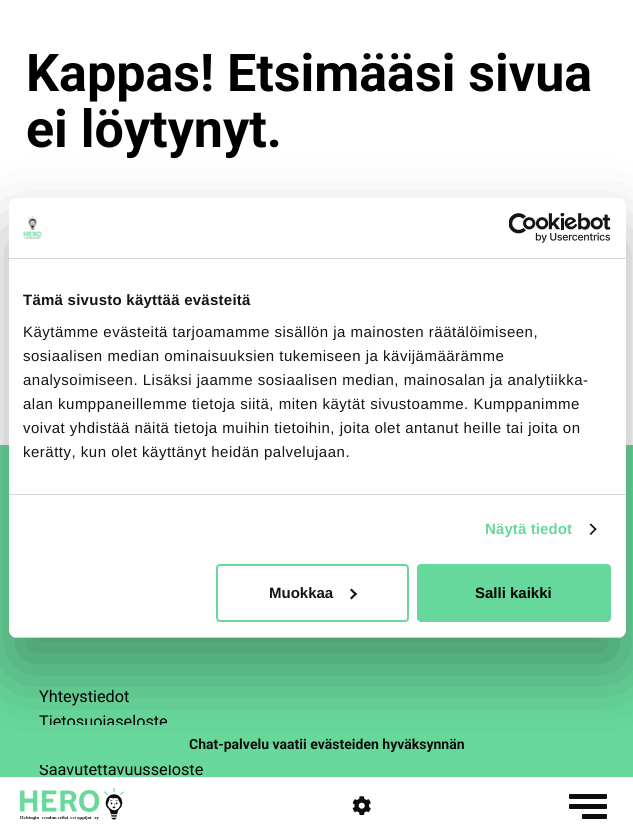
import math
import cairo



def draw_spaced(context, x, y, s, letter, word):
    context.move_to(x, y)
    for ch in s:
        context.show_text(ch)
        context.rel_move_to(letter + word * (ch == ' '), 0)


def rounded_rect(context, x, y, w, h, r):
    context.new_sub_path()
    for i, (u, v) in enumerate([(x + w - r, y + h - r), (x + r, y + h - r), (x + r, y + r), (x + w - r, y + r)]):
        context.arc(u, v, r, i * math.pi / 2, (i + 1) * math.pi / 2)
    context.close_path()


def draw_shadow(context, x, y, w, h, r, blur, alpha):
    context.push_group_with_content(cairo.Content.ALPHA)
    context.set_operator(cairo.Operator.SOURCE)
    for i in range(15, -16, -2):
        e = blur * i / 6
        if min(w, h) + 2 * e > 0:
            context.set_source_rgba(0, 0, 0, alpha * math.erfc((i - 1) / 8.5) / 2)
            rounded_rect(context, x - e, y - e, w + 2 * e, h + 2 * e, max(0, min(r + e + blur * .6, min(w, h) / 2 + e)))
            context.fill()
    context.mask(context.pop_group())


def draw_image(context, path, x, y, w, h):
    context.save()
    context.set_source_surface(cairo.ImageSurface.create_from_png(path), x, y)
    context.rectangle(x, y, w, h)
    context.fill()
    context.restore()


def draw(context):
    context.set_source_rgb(1, 1, 1)
    context.paint()
    draw_image(context, "images/1.png", 20, 788, 104, 32)
    draw_image(context, "images/2.png", 352, 796, 19, 20)
    context.set_source_rgb(12 / 255, 12 / 255, 12 / 255)
    rounded_rect(context, 569, 794, 38, 5, 1)
    context.fill()
    rounded_rect(context, 569, 804, 38, 5, 1)
    context.fill()
    rounded_rect(context, 582, 814, 25, 5, 1)
    context.fill()
    context.set_source_rgb(104 / 255, 216 / 255, 155 / 255)
    context.rectangle(0, 445, 633, 332)
    context.fill()
    context.select_font_face("Roboto", cairo.FontSlant.NORMAL, cairo.FontWeight.BOLD)
    context.set_font_size(52)
    context.set_source_rgb(0, 0, 0)
    context.move_to(26, 91)
    context.show_text("Kappas! Etsimääsi sivua")
    context.move_to(26, 147)
    context.show_text("ei löytynyt.")
    context.select_font_face("Roboto")
    context.set_font_size(16.25)
    context.move_to(39, 702)
    context.show_text("Yhteystiedot")
    context.move_to(39, 727)
    context.show_text("Tietosuojaseloste")
    context.move_to(39, 775)
    context.show_text("Saavutettavuusseloste")
    context.set_source_rgb(104 / 255, 216 / 255, 155 / 255)
    rounded_rect(context, 10, 725, 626, 40, 3)
    context.fill()
    context.set_source_rgb(0, 0, 0)
    draw_shadow(context, 9, 230, 617, 440, 8, 34, 0.3)
    context.set_source_rgb(1, 1, 1)
    rounded_rect(context, 9, 198, 617, 440, 8)
    context.fill()
    rounded_rect(context, 217, 565, 191, 56, 3)
    context.set_source_rgb(103 / 255, 216 / 255, 155 / 255)
    context.stroke()
    context.set_source_rgb(20 / 255, 20 / 255, 20 / 255)
    context.new_path()
    context.move_to(351.5, 588.5)
    context.line_to(357, 594)
    context.line_to(355.5, 595.5)
    context.line_to(350, 590)
    context.close_path()
    context.fill()
    context.new_path()
    context.move_to(355.5, 592.5)
    context.line_to(357, 594)
    context.line_to(351.5, 599.5)
    context.line_to(350, 598)
    context.close_path()
    context.fill()
    context.set_source_rgb(103 / 255, 216 / 255, 155 / 255)
    rounded_rect(context, 418, 565, 192, 56, 3)
    context.fill_preserve()
    context.stroke()
    context.select_font_face("Liberation Sans", cairo.FontSlant.NORMAL, cairo.FontWeight.BOLD)
    context.set_font_size(15)
    context.set_source_rgb(0, 0, 0)
    context.move_to(475, 598)
    context.show_text("Salli kaikki")
    context.set_source_rgb(20 / 255, 20 / 255, 20 / 255)
    context.move_to(269, 598)
    context.show_text("Muokkaa")
    context.save()
    rounded_rect(context, 9, 198, 617, 440, 8)
    context.clip()
    context.set_source_rgb(214 / 255, 214 / 255, 214 / 255)
    context.rectangle(9, 637, 617, 1)
    context.fill()
    context.restore()
    context.new_path()
    context.move_to(591, 523.5)
    context.line_to(596.5, 529)
    context.line_to(595.5, 530.5)
    context.line_to(589.5, 524.5)
    context.close_path()
    context.fill()
    context.new_path()
    context.move_to(595.5, 528)
    context.line_to(596.5, 529)
    context.line_to(591, 535)
    context.line_to(589.5, 534)
    context.close_path()
    context.fill()
    context.select_font_face("Liberation Sans")
    draw_spaced(context, 23, 457, "kerätty, kun olet käyttänyt heidän palvelujaan.", 0.5, 0)
    draw_spaced(context, 23, 433, "voivat yhdistää näitä tietoja muihin tietoihin, joita olet antanut heille tai joita on", 0.5, 0)
    draw_spaced(context, 23, 409, "alan kumppaneillemme tietoja siitä, miten käytät sivustoamme. Kumppanimme", 0.5, 0)
    draw_spaced(context, 23, 385, "analysoimiseen. Lisäksi jaamme sosiaalisen median, mainosalan ja analytiikka-", 0.5, 0)
    draw_spaced(context, 23, 361, "sosiaalisen median ominaisuuksien tukemiseen ja kävijämäärämme", 0.5, 0)
    draw_spaced(context, 23, 337, "Käytämme evästeitä tarjoamamme sisällön ja mainosten räätälöimiseen,", 0.5, 0)
    context.select_font_face("Liberation Sans", cairo.FontSlant.NORMAL, cairo.FontWeight.BOLD)
    draw_spaced(context, 23, 305, "Tämä sivusto käyttää evästeitä", 0.25, 0)
    context.set_source_rgb(214 / 255, 214 / 255, 214 / 255)
    context.rectangle(9, 494, 617, 1)
    context.fill()
    context.set_source_rgb(103 / 255, 216 / 255, 155 / 255)
    draw_spaced(context, 485, 534, "Näytä tiedot", 0.1, 0)
    draw_image(context, "images/4.png", 509, 213, 102, 30)
    draw_image(context, "images/3.png", 23, 215, 19, 24)
    context.set_source_rgb(214 / 255, 214 / 255, 214 / 255)
    context.rectangle(9, 258, 617, 1)
    context.fill()
    context.select_font_face("Roboto", cairo.FontSlant.NORMAL, cairo.FontWeight.BOLD)
    context.set_font_size(14)
    context.set_source_rgb(12 / 255, 12 / 255, 12 / 255)
    context.move_to(189, 749)
    context.show_text("Chat-palvelu vaatii evästeiden hyväksynnän")


surface = cairo.ImageSurface(cairo.Format.RGB24, 633, 835)
context = cairo.Context(surface)
options = cairo.FontOptions()
options.set_hint_metrics(cairo.HintMetrics.OFF)
options.set_hint_style(cairo.HintStyle.NONE)
context.set_font_options(options)
context.set_miter_limit(4)
draw(context)
surface.write_to_png("out.png")
